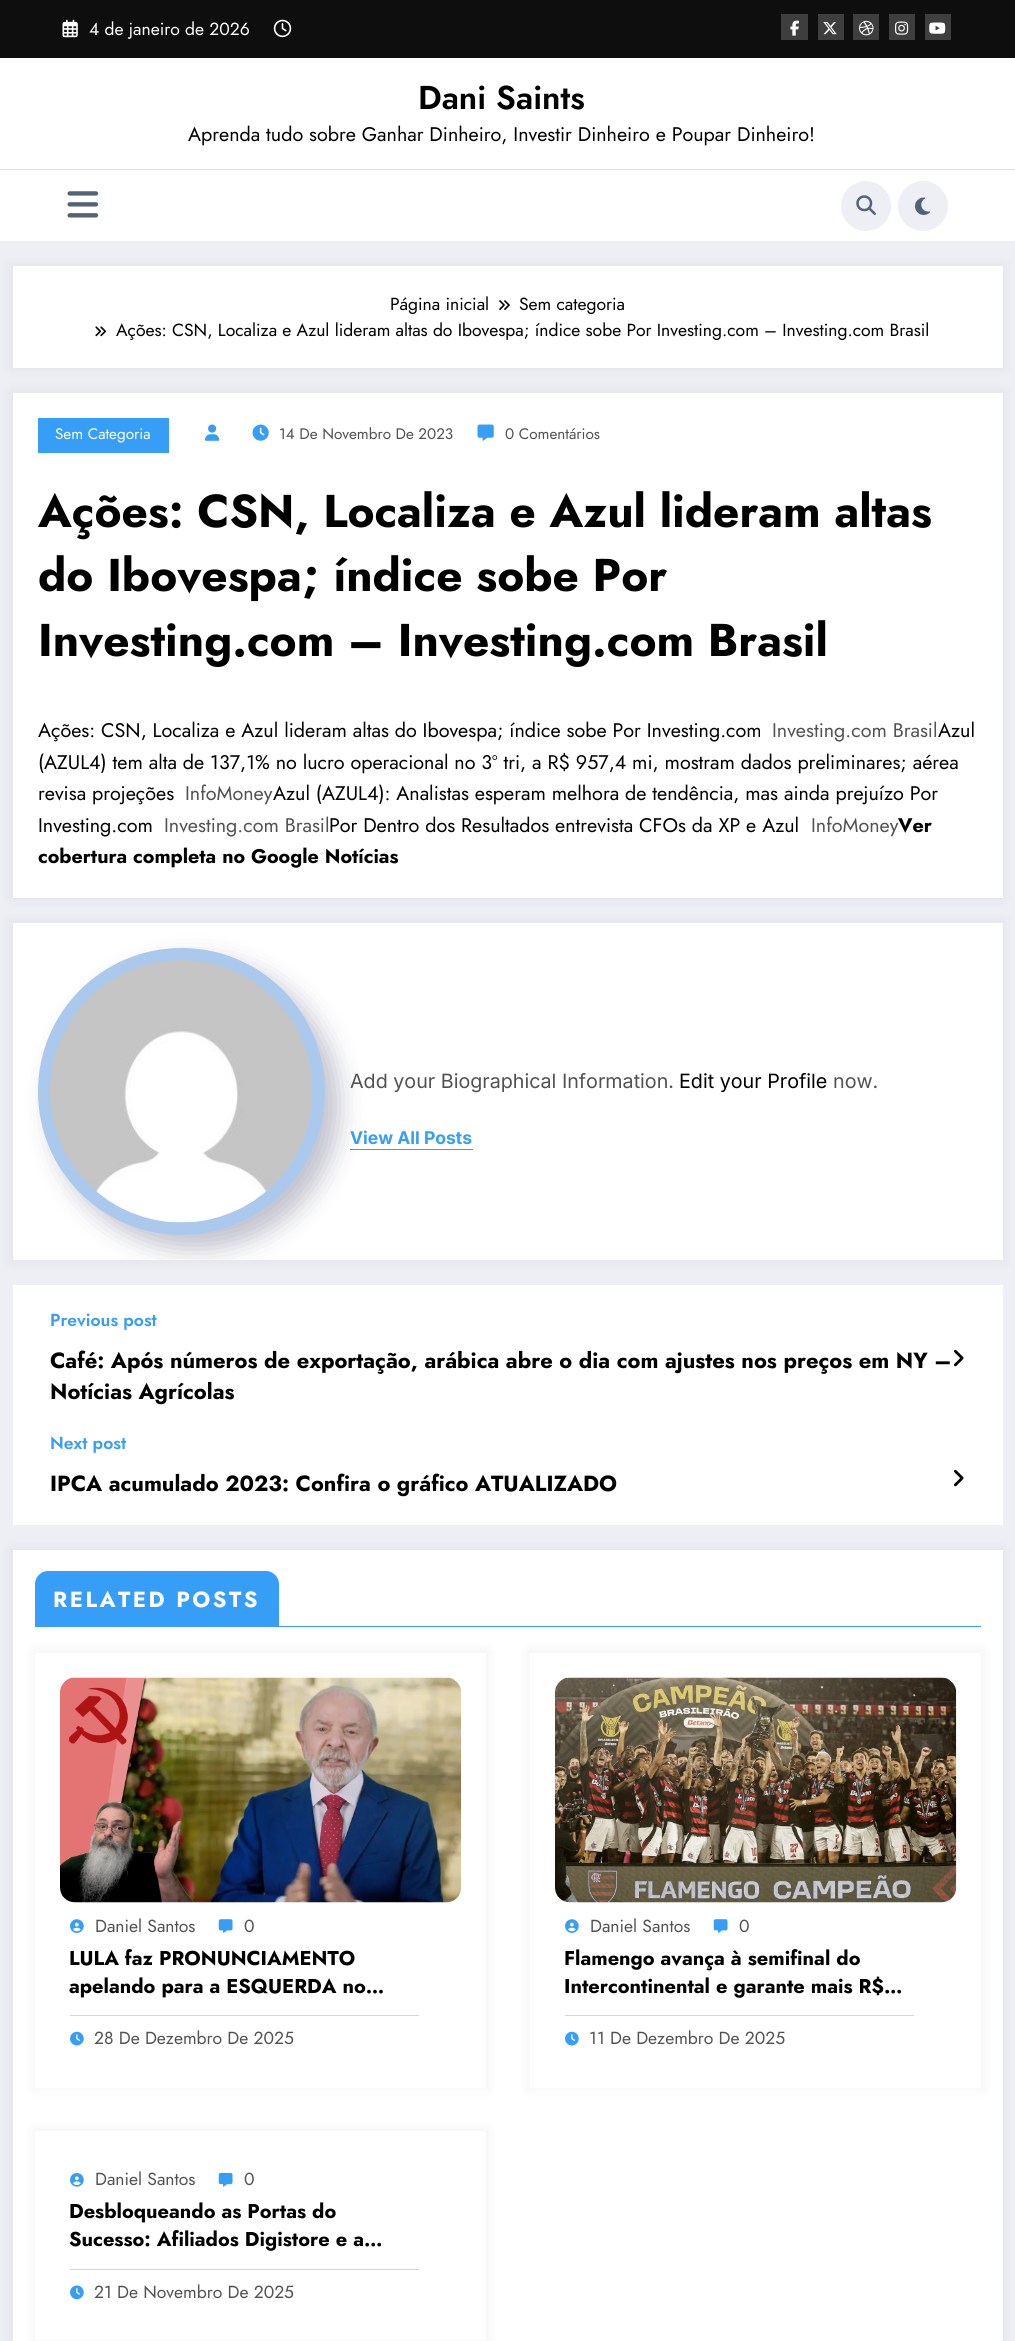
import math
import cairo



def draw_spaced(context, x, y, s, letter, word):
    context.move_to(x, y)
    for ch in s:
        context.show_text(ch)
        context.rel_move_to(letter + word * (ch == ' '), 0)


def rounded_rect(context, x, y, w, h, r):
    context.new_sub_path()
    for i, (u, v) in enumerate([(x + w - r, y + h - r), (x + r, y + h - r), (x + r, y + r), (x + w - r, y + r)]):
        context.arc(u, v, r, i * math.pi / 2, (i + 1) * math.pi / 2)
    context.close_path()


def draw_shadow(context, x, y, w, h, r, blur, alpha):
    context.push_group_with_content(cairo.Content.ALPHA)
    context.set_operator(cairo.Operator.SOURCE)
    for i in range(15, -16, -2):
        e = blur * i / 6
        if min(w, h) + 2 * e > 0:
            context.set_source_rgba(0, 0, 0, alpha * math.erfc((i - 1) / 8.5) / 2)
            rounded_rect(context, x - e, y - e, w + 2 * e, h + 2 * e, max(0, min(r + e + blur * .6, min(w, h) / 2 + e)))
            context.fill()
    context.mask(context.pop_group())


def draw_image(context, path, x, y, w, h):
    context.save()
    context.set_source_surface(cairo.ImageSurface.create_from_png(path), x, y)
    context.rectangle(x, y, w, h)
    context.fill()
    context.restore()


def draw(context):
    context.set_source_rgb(238 / 255, 238 / 255, 245 / 255)
    context.paint()
    context.set_source_rgb(14 / 255, 14 / 255, 14 / 255)
    context.rectangle(0, 0, 1015, 58)
    context.fill()
    draw_image(context, "images/1.png", 62, 19, 16, 19)
    draw_image(context, "images/2.png", 273, 19, 19, 19)
    context.set_source_rgb(62 / 255, 62 / 255, 62 / 255)
    context.rectangle(781, 14, 27, 26)
    context.fill()
    draw_image(context, "images/3.png", 790, 20, 9, 16)
    context.rectangle(818, 14, 26, 26)
    context.fill()
    draw_image(context, "images/4.png", 823, 22, 14, 13)
    context.rectangle(853, 14, 26, 26)
    context.fill()
    draw_image(context, "images/5.png", 859, 20, 15, 16)
    context.rectangle(889, 14, 26, 26)
    context.fill()
    draw_image(context, "images/6.png", 895, 21, 14, 14)
    context.rectangle(925, 14, 26, 26)
    context.fill()
    draw_image(context, "images/7.png", 929, 22, 17, 12)
    context.set_source_rgb(1, 1, 1)
    context.rectangle(0, 58, 1015, 183)
    context.fill()
    context.set_source_rgb(225 / 255, 225 / 255, 225 / 255)
    context.rectangle(0, 169, 1015, 1)
    context.fill()
    draw_image(context, "images/8.png", 67, 191, 32, 27)
    context.set_source_rgb(238 / 255, 238 / 255, 245 / 255)
    context.arc(866, 206, 25, 0, 2 * math.pi)
    context.fill()
    draw_image(context, "images/9.png", 856, 195, 20, 20)
    context.arc(923, 206, 25, 0, 2 * math.pi)
    context.fill()
    draw_image(context, "images/10.png", 915, 197, 15, 18)
    context.set_source_rgb(23 / 255, 23 / 255, 35 / 255)
    draw_shadow(context, 10, 264, 995, 106, 0, 5, 0.05)
    context.set_source_rgb(1, 1, 1)
    context.rectangle(13, 266, 990, 102)
    context.fill()
    draw_image(context, "images/11.png", 499, 300, 11, 10)
    draw_image(context, "images/12.png", 95, 326, 11, 11)
    context.set_source_rgb(23 / 255, 23 / 255, 35 / 255)
    draw_shadow(context, 10, 390, 995, 510, 0, 5, 0.05)
    context.set_source_rgb(1, 1, 1)
    context.rectangle(13, 393, 990, 505)
    context.fill()
    context.set_source_rgb(54 / 255, 158 / 255, 246 / 255)
    context.rectangle(38, 418, 131, 35)
    context.fill()
    draw_image(context, "images/13.png", 205, 424, 15, 17)
    draw_image(context, "images/14.png", 252, 424, 17, 17)
    draw_image(context, "images/15.png", 477, 424, 17, 17)
    context.set_source_rgb(23 / 255, 23 / 255, 35 / 255)
    draw_shadow(context, 10, 920, 995, 343, 0, 5, 0.05)
    context.set_source_rgb(1, 1, 1)
    context.rectangle(13, 923, 990, 337)
    context.fill()
    context.set_source_rgb(54 / 255, 158 / 255, 246 / 255)
    context.rectangle(350, 1149, 123, 1)
    context.fill()
    context.set_source_rgb(1, 1, 1)
    context.rectangle(13, 1285, 990, 240)
    context.fill()
    context.save()
    context.rectangle(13, 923, 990, 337)
    context.clip()
    context.set_source_rgb(4 / 255, 8 / 255, 54 / 255)
    draw_shadow(context, 51, 961, 288, 288, 144, 12.5, 0.25)
    context.restore()
    context.set_source_rgb(220 / 255, 220 / 255, 232 / 255)
    context.arc(181.5, 1091.5, 143.5, 0, 2 * math.pi)
    context.fill()
    context.arc(181.5, 1091.5, 137, 0, 2 * math.pi)
    context.set_source_rgba(54 / 255, 158 / 255, 246 / 255, 0.3)
    context.set_line_width(13)
    context.stroke()
    draw_image(context, "images/16.png", 50, 960, 263, 263)
    draw_image(context, "images/17.png", 954, 1349, 10, 18)
    draw_image(context, "images/17.png", 954, 1469, 10, 18)
    context.set_source_rgb(23 / 255, 23 / 255, 35 / 255)
    draw_shadow(context, 10, 1548, 995, 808, 0, 5, 0.05)
    context.set_source_rgb(1, 1, 1)
    context.rectangle(13, 1550, 990, 791)
    context.fill()
    context.set_source_rgb(54 / 255, 158 / 255, 246 / 255)
    context.rectangle(35, 1626, 946, 1)
    context.fill()
    context.new_path()
    context.move_to(48, 1571)
    context.line_to(266, 1571)
    context.curve_to(273, 1571, 279, 1577, 279, 1584)
    context.line_to(279, 1626)
    context.line_to(35, 1626)
    context.line_to(35, 1584)
    context.curve_to(35, 1577, 41, 1571, 48, 1571)
    context.close_path()
    context.fill()
    context.set_source_rgb(23 / 255, 23 / 255, 35 / 255)
    draw_shadow(context, 33, 1650, 456, 440, 0, 5, 0.05)
    context.set_source_rgb(1, 1, 1)
    context.rectangle(35, 1653, 451, 435)
    context.fill()
    draw_image(context, "images/18.png", 60, 1677, 402, 226)
    context.set_source_rgb(215 / 255, 215 / 255, 215 / 255)
    context.rectangle(70, 2015, 349, 1)
    context.fill()
    draw_image(context, "images/19.png", 70, 1919, 14, 14)
    draw_image(context, "images/20.png", 218, 1919, 15, 14)
    draw_image(context, "images/21.png", 70, 2031, 14, 15)
    context.set_source_rgb(23 / 255, 23 / 255, 35 / 255)
    draw_shadow(context, 528, 1650, 456, 440, 0, 5, 0.05)
    context.set_source_rgb(1, 1, 1)
    context.rectangle(530, 1653, 451, 435)
    context.fill()
    draw_image(context, "images/22.png", 555, 1677, 402, 226)
    context.set_source_rgb(215 / 255, 215 / 255, 215 / 255)
    context.rectangle(565, 2015, 349, 1)
    context.fill()
    draw_image(context, "images/19.png", 565, 1919, 14, 14)
    draw_image(context, "images/20.png", 713, 1919, 15, 14)
    draw_image(context, "images/21.png", 565, 2031, 14, 15)
    context.set_source_rgb(23 / 255, 23 / 255, 35 / 255)
    draw_shadow(context, 33, 2129, 456, 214, 0, 5, 0.05)
    context.set_source_rgb(1, 1, 1)
    context.rectangle(35, 2131, 451, 209)
    context.fill()
    context.set_source_rgb(215 / 255, 215 / 255, 215 / 255)
    context.rectangle(70, 2269, 349, 1)
    context.fill()
    draw_image(context, "images/23.png", 70, 2173, 14, 14)
    draw_image(context, "images/24.png", 218, 2173, 15, 14)
    draw_image(context, "images/25.png", 70, 2285, 14, 15)
    context.select_font_face("Jost")
    context.set_font_size(17.5)
    context.set_source_rgb(1, 1, 1)
    context.move_to(89, 35)
    context.show_text("4 de janeiro de 2026")
    context.select_font_face("Jost SemiBold")
    context.set_font_size(33)
    context.set_source_rgb(0, 0, 0)
    context.move_to(418, 109)
    context.show_text("Dani Saints")
    context.select_font_face("Jost")
    context.set_font_size(19.7)
    context.move_to(188, 141)
    context.show_text("Aprenda tudo sobre Ganhar Dinheiro, Investir Dinheiro e Poupar Dinheiro!")
    context.set_font_size(17.5)
    context.move_to(390, 310)
    context.show_text("Página inicial")
    context.move_to(519, 310)
    context.show_text("Sem categoria")
    context.move_to(116, 336)
    context.show_text("Ações: CSN, Localiza e Azul lideram altas do Ibovespa; índice sobe Por Investing.com – Investing.com Brasil")
    context.set_font_size(15.25)
    context.set_source_rgb(1, 1, 1)
    context.move_to(55, 439)
    context.show_text("Sem Categoria")
    context.set_source_rgb(82 / 255, 82 / 255, 82 / 255)
    context.move_to(279, 439)
    context.show_text("14 De Novembro De 2023")
    context.move_to(505, 439)
    context.show_text("0 Comentários")
    context.select_font_face("Jost", cairo.FontSlant.NORMAL, cairo.FontWeight.BOLD)
    context.set_font_size(45.9)
    context.set_source_rgb(0, 0, 0)
    context.move_to(38, 527)
    context.show_text("Ações: CSN, Localiza e Azul lideram altas")
    context.move_to(38, 591)
    context.show_text("do Ibovespa; índice sobe Por")
    context.move_to(38, 656)
    context.show_text("Investing.com – Investing.com Brasil")
    context.select_font_face("Jost")
    context.set_font_size(19.7)
    context.move_to(38, 737)
    context.show_text("Ações: CSN, Localiza e Azul lideram altas do Ibovespa; índice sobe Por Investing.com")
    context.set_source_rgb(82 / 255, 82 / 255, 82 / 255)
    context.move_to(772, 737)
    context.show_text("Investing.com Brasil")
    context.set_source_rgb(0, 0, 0)
    context.move_to(938, 737)
    context.show_text("Azul")
    context.move_to(38, 769)
    context.show_text("(AZUL4) tem alta de 137,1% no lucro operacional no 3º tri, a R$ 957,4 mi, mostram dados preliminares; aérea")
    context.move_to(38, 800)
    context.show_text("revisa projeções")
    context.set_source_rgb(82 / 255, 82 / 255, 82 / 255)
    context.move_to(185, 800)
    context.show_text("InfoMoney")
    context.set_source_rgb(0, 0, 0)
    context.move_to(273, 800)
    context.show_text("Azul (AZUL4): Analistas esperam melhora de tendência, mas ainda prejuízo Por")
    context.move_to(38, 832)
    context.show_text("Investing.com")
    context.set_source_rgb(82 / 255, 82 / 255, 82 / 255)
    context.move_to(164, 832)
    context.show_text("Investing.com Brasil")
    context.set_source_rgb(0, 0, 0)
    context.move_to(329, 832)
    context.show_text("Por Dentro dos Resultados entrevista CFOs da XP e Azul")
    context.set_source_rgb(82 / 255, 82 / 255, 82 / 255)
    context.move_to(811, 832)
    context.show_text("InfoMoney")
    context.select_font_face("Jost", cairo.FontSlant.NORMAL, cairo.FontWeight.BOLD)
    context.set_source_rgb(0, 0, 0)
    context.move_to(898, 832)
    context.show_text("Ver")
    context.move_to(38, 863)
    context.show_text("cobertura completa no Google Notícias")
    context.select_font_face("Inter")
    context.set_source_rgb(82 / 255, 82 / 255, 82 / 255)
    context.move_to(350, 1088)
    context.show_text("Add your Biographical Information.")
    context.set_source_rgb(0, 0, 0)
    context.move_to(679, 1088)
    context.show_text("Edit your Profile")
    context.set_source_rgb(82 / 255, 82 / 255, 82 / 255)
    context.move_to(833, 1088)
    context.show_text("now.")
    context.select_font_face("Inter", cairo.FontSlant.NORMAL, cairo.FontWeight.BOLD)
    context.set_font_size(17.5)
    context.set_source_rgb(54 / 255, 158 / 255, 246 / 255)
    context.move_to(350, 1144)
    context.show_text("View All Posts")
    context.select_font_face("Jost SemiBold")
    context.move_to(50, 1326)
    context.show_text("Previous post")
    context.select_font_face("Jost", cairo.FontSlant.NORMAL, cairo.FontWeight.BOLD)
    context.set_font_size(21.9)
    context.set_source_rgb(0, 0, 0)
    context.move_to(50, 1368)
    context.show_text("Café: Após números de exportação, arábica abre o dia com ajustes nos preços em NY –")
    context.move_to(50, 1399)
    context.show_text("Notícias Agrícolas")
    context.select_font_face("Jost SemiBold")
    context.set_font_size(17.5)
    context.set_source_rgb(54 / 255, 158 / 255, 246 / 255)
    context.move_to(50, 1449)
    context.show_text("Next post")
    context.select_font_face("Jost", cairo.FontSlant.NORMAL, cairo.FontWeight.BOLD)
    context.set_font_size(21.9)
    context.set_source_rgb(0, 0, 0)
    context.move_to(50, 1491)
    context.show_text("IPCA acumulado 2023: Confira o gráfico ATUALIZADO")
    context.set_source_rgb(1, 1, 1)
    draw_spaced(context, 53, 1607, "RELATED POSTS", 2.5, 0)
    context.select_font_face("Jost")
    context.set_font_size(17.5)
    context.set_source_rgb(82 / 255, 82 / 255, 82 / 255)
    context.move_to(95, 1932)
    context.show_text("Daniel Santos")
    context.move_to(244, 1932)
    context.show_text("0")
    context.select_font_face("Jost", cairo.FontSlant.NORMAL, cairo.FontWeight.BOLD)
    context.set_font_size(20)
    context.set_source_rgb(0, 0, 0)
    context.move_to(69, 1965)
    context.show_text("LULA faz PRONUNCIAMENTO")
    context.move_to(69, 1993)
    context.show_text("apelando para a ESQUERDA no…")
    context.select_font_face("Jost")
    context.set_font_size(17.5)
    context.set_source_rgb(82 / 255, 82 / 255, 82 / 255)
    context.move_to(94, 2044)
    context.show_text("28 De Dezembro De 2025")
    context.move_to(590, 1932)
    context.show_text("Daniel Santos")
    context.move_to(739, 1932)
    context.show_text("0")
    context.select_font_face("Jost", cairo.FontSlant.NORMAL, cairo.FontWeight.BOLD)
    context.set_font_size(20)
    context.set_source_rgb(0, 0, 0)
    context.move_to(564, 1965)
    context.show_text("Flamengo avança à semifinal do")
    context.move_to(564, 1993)
    context.show_text("Intercontinental e garante mais R$…")
    context.select_font_face("Jost")
    context.set_font_size(17.5)
    context.set_source_rgb(82 / 255, 82 / 255, 82 / 255)
    context.move_to(589, 2044)
    context.show_text("11 De Dezembro De 2025")
    context.move_to(95, 2185)
    context.show_text("Daniel Santos")
    context.move_to(244, 2185)
    context.show_text("0")
    context.select_font_face("Jost", cairo.FontSlant.NORMAL, cairo.FontWeight.BOLD)
    context.set_font_size(20)
    context.set_source_rgb(0, 0, 0)
    context.move_to(69, 2218)
    context.show_text("Desbloqueando as Portas do")
    context.move_to(69, 2246)
    context.show_text("Sucesso: Afiliados Digistore e a…")
    context.select_font_face("Jost")
    context.set_font_size(17.5)
    context.set_source_rgb(82 / 255, 82 / 255, 82 / 255)
    context.move_to(94, 2298)
    context.show_text("21 De Novembro De 2025")


surface = cairo.ImageSurface(cairo.Format.RGB24, 1015, 2341)
context = cairo.Context(surface)
options = cairo.FontOptions()
options.set_hint_metrics(cairo.HintMetrics.OFF)
options.set_hint_style(cairo.HintStyle.NONE)
context.set_font_options(options)
context.set_miter_limit(4)
draw(context)
surface.write_to_png("out.png")
